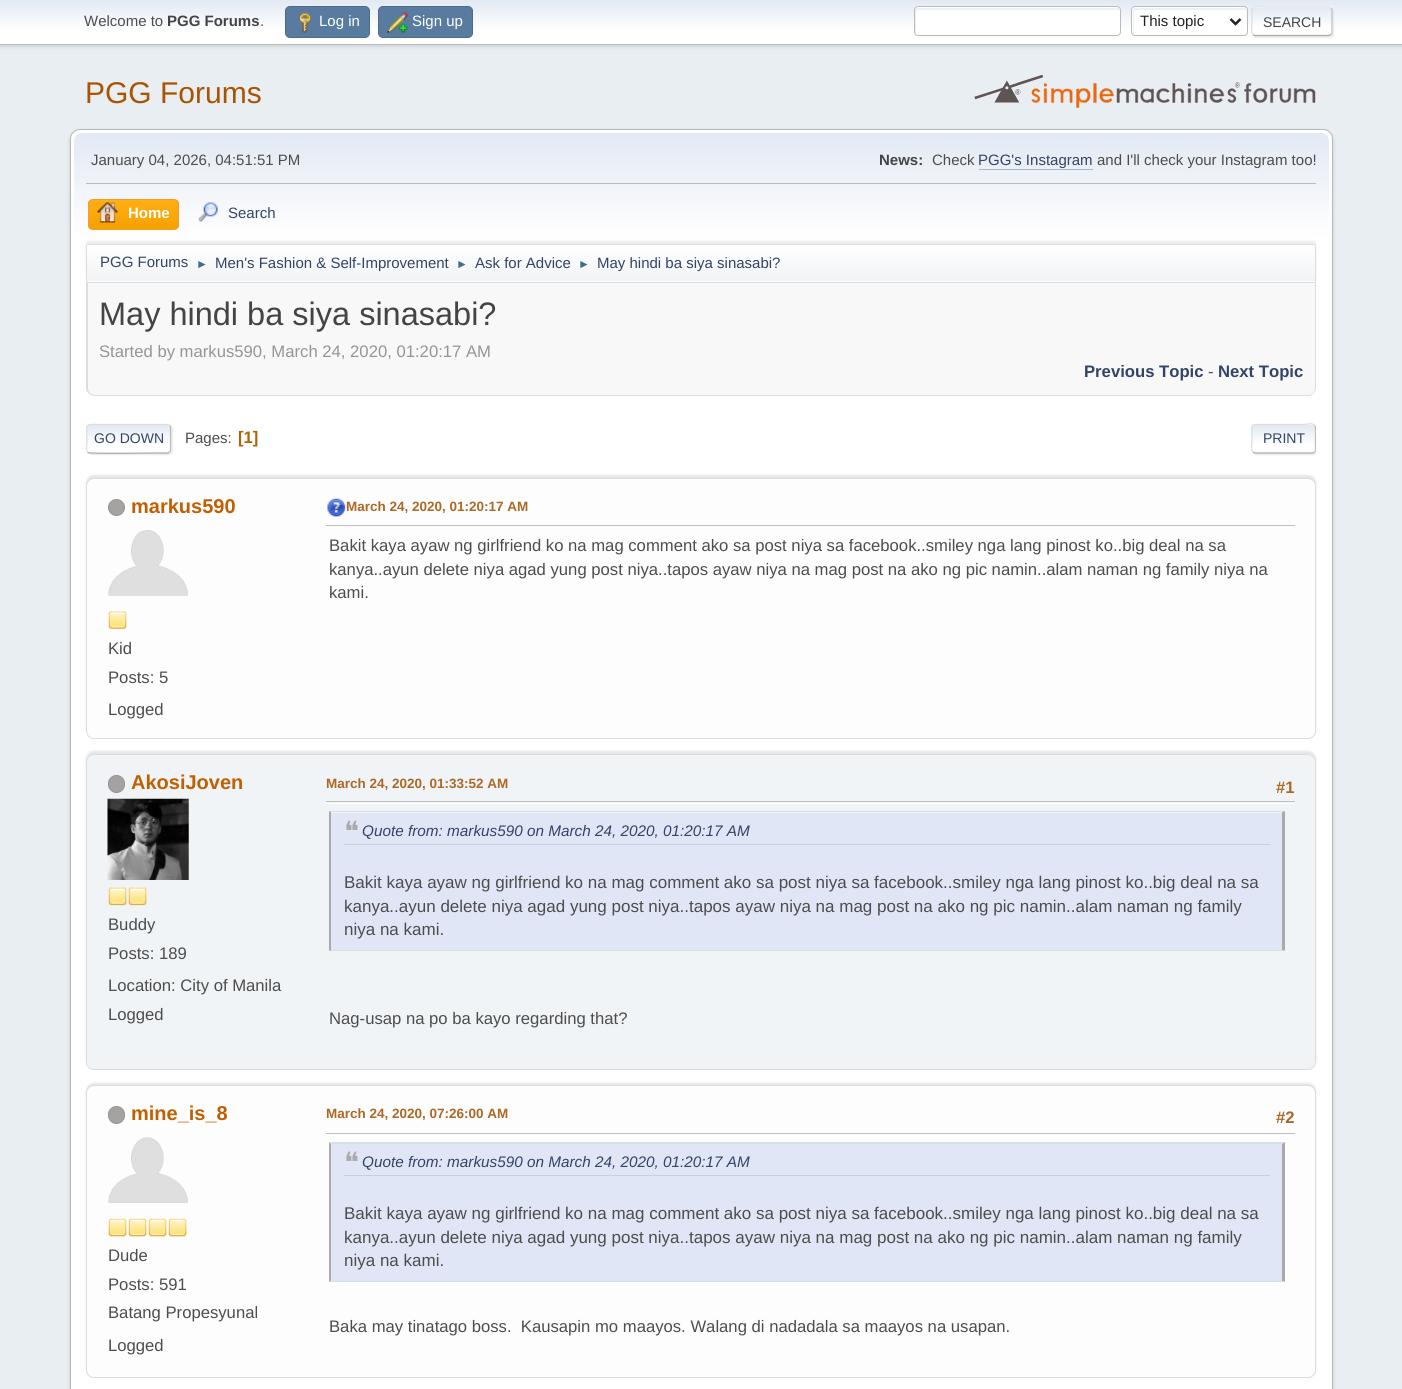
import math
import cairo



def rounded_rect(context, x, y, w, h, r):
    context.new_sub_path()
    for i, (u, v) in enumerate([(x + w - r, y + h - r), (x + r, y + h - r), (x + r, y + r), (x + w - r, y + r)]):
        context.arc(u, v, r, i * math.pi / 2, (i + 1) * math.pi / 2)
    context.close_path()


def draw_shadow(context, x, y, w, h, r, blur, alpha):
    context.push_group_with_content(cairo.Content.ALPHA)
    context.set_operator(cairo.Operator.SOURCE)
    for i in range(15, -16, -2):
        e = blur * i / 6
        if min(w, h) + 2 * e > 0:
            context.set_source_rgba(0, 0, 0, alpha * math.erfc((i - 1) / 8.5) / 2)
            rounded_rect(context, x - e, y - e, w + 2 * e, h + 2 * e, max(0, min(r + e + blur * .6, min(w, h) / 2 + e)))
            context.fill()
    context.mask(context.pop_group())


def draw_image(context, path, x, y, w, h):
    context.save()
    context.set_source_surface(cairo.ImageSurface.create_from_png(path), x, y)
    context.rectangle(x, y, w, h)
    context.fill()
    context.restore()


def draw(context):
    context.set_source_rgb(233 / 255, 238 / 255, 242 / 255)
    context.paint()
    context.set_source_rgb(0, 0, 0)
    draw_shadow(context, 0, 1, 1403, 45, 0, 2.5, 0.16)
    gradient = cairo.LinearGradient(701, 0, 701, 44)
    gradient.add_color_stop_rgba(0, 226 / 255, 233 / 255, 243 / 255, 1)
    gradient.add_color_stop_rgba(0.7, 1, 1, 1, 1)
    context.set_source(gradient)
    context.rectangle(0, 0, 1402, 44)
    context.fill()
    context.set_source_rgb(187 / 255, 187 / 255, 187 / 255)
    context.rectangle(0, 44, 1402, 1)
    context.fill()
    context.set_source_rgb(89 / 255, 123 / 255, 159 / 255)
    rounded_rect(context, 285.5, 6.5, 84, 31, 4.5)
    context.fill_preserve()
    context.set_source_rgb(74 / 255, 107 / 255, 140 / 255)
    context.set_line_width(1)
    context.stroke()
    draw_image(context, "images/1.png", 298, 12, 14, 21)
    context.set_source_rgb(89 / 255, 123 / 255, 159 / 255)
    rounded_rect(context, 378.5, 6.5, 94, 31, 4.5)
    context.fill_preserve()
    context.set_source_rgb(74 / 255, 107 / 255, 140 / 255)
    context.stroke()
    draw_image(context, "images/2.png", 387, 12, 21, 21)
    context.set_source_rgb(1, 1, 1)
    rounded_rect(context, 914, 6, 207, 30, 4)
    context.fill()
    context.set_source_rgb(236 / 255, 241 / 255, 248 / 255)
    context.new_path()
    context.move_to(919, 10)
    context.line_to(1120, 10)
    context.curve_to(1120, 9, 1119, 8, 1118, 8)
    context.line_to(918, 8)
    context.curve_to(916, 8, 915, 9, 915, 10)
    context.line_to(915, 32)
    context.curve_to(915, 33, 915, 34, 916, 35)
    context.line_to(916, 12)
    context.curve_to(916, 11, 917, 10, 919, 10)
    context.close_path()
    context.fill()
    rounded_rect(context, 914.5, 6.5, 206, 29, 3.5)
    context.set_source_rgb(187 / 255, 187 / 255, 187 / 255)
    context.stroke()
    context.set_source_rgb(1, 1, 1)
    rounded_rect(context, 1131, 6, 117, 30, 4)
    context.fill()
    context.set_source_rgb(236 / 255, 241 / 255, 248 / 255)
    context.new_path()
    context.move_to(1136, 10)
    context.line_to(1246, 10)
    context.curve_to(1246, 9, 1245, 8, 1244, 8)
    context.line_to(1136, 8)
    context.curve_to(1134, 8, 1133, 9, 1133, 10)
    context.line_to(1133, 32)
    context.curve_to(1133, 33, 1133, 34, 1134, 35)
    context.line_to(1134, 12)
    context.curve_to(1134, 11, 1135, 10, 1136, 10)
    context.close_path()
    context.fill()
    rounded_rect(context, 1131.5, 6.5, 116, 29, 3.5)
    context.set_source_rgb(187 / 255, 187 / 255, 187 / 255)
    context.stroke()
    context.new_path()
    context.move_to(1230.5, 19)
    context.line_to(1235.5, 24)
    context.line_to(1240.5, 19)
    context.set_source_rgb(34 / 255, 34 / 255, 34 / 255)
    context.set_line_width(2.5)
    context.stroke()
    context.set_source_rgb(221 / 255, 221 / 255, 221 / 255)
    draw_shadow(context, 1253, 8, 81, 30, 4, 0.5, 0.57)
    context.save()
    rounded_rect(context, 1251, 6, 82, 30, 4)
    context.clip()
    gradient = cairo.LinearGradient(1292, -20, 1292, 7.5)
    gradient.add_color_stop_rgba(0, 226 / 255, 233 / 255, 243 / 255, 1)
    gradient.add_color_stop_rgba(0.7, 1, 1, 1, 1)
    context.set_source(gradient)
    context.rectangle(1251, 6, 82, 2)
    context.fill()
    gradient = cairo.LinearGradient(1292, 7.5, 1292, 35)
    gradient.add_color_stop_rgba(0, 226 / 255, 233 / 255, 243 / 255, 1)
    gradient.add_color_stop_rgba(0.7, 1, 1, 1, 1)
    context.set_source(gradient)
    context.rectangle(1251, 8, 82, 27)
    context.fill()
    gradient = cairo.LinearGradient(1292, 35, 1292, 63)
    gradient.add_color_stop_rgba(0, 226 / 255, 233 / 255, 243 / 255, 1)
    gradient.add_color_stop_rgba(0.7, 1, 1, 1, 1)
    context.set_source(gradient)
    context.rectangle(1251, 35, 82, 1)
    context.fill()
    context.restore()
    context.new_path()
    context.move_to(1331, 8)
    context.curve_to(1331.5, 8.5, 1332, 9, 1332, 10)
    context.line_to(1332, 32.5)
    context.curve_to(1332, 33.5, 1331.5, 34, 1331, 34.5)
    context.set_source_rgb(187 / 255, 187 / 255, 187 / 255)
    context.set_line_width(1.2)
    context.stroke()
    context.new_path()
    context.move_to(1331, 34.5)
    context.line_to(1329, 35.5)
    context.line_to(1254.5, 35.5)
    context.line_to(1253, 34.5)
    context.set_source_rgb(170 / 255, 170 / 255, 170 / 255)
    context.stroke()
    context.new_path()
    context.move_to(1253, 34.5)
    context.curve_to(1250.5, 32.5, 1252, 24, 1252, 21)
    context.curve_to(1252, 4, 1249.5, 7, 1267.5, 7)
    context.line_to(1329, 7)
    context.line_to(1331, 8)
    context.set_source_rgb(221 / 255, 221 / 255, 221 / 255)
    context.stroke()
    draw_image(context, "images/3.png", 974, 74, 342, 34)
    context.set_source_rgb(0, 0, 0)
    draw_shadow(context, 70, 131, 1263, 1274, 10, 2, 0.14)
    context.set_source_rgb(1, 1, 1)
    rounded_rect(context, 70.5, 129.5, 1262, 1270, 9.5)
    context.fill_preserve()
    context.set_source_rgb(184 / 255, 184 / 255, 184 / 255)
    context.set_line_width(1)
    context.stroke()
    gradient = cairo.LinearGradient(701, 132, 701, 285)
    gradient.add_color_stop_rgba(0, 226 / 255, 233 / 255, 243 / 255, 1)
    gradient.add_color_stop_rgba(0.7, 1, 1, 1, 1)
    context.set_source(gradient)
    context.new_path()
    context.move_to(82, 133)
    context.line_to(1321, 133)
    context.curve_to(1325.5, 133, 1329, 136.5, 1329, 141)
    context.line_to(1329, 285)
    context.line_to(74, 285)
    context.line_to(74, 141)
    context.curve_to(74, 136.5, 77.5, 133, 82, 133)
    context.close_path()
    context.fill()
    context.set_source_rgb(187 / 255, 187 / 255, 187 / 255)
    context.rectangle(86, 183, 1230, 1)
    context.fill()
    context.set_source_rgb(168 / 255, 182 / 255, 207 / 255)
    context.rectangle(979, 169, 114, 1)
    context.fill()
    context.save()
    rounded_rect(context, 88, 199, 91, 31, 5)
    context.clip()
    gradient = cairo.LinearGradient(133, 200, 133, 229)
    gradient.add_color_stop_rgba(0, 1, 174 / 255, 20 / 255, 1)
    gradient.add_color_stop_rgba(1, 245 / 255, 161 / 255, 0, 1)
    context.set_source(gradient)
    context.rectangle(88, 200, 91, 29)
    context.fill()
    context.restore()
    rounded_rect(context, 88.5, 199.5, 90, 30, 4.5)
    context.set_source_rgb(244 / 255, 154 / 255, 58 / 255)
    context.stroke()
    draw_image(context, "images/4.png", 97, 202, 21, 21)
    draw_image(context, "images/5.png", 198, 202, 20, 20)
    context.set_source_rgb(0, 0, 0)
    draw_shadow(context, 86, 241, 1230, 39, 2.5, 1, 0.08)
    context.set_source_rgb(1, 1, 1)
    rounded_rect(context, 86, 244, 1230, 39, 2.5)
    context.fill()
    gradient = cairo.LinearGradient(701, 245, 701, 281)
    gradient.add_color_stop_rgba(0, 1, 1, 1, 1)
    gradient.add_color_stop_rgba(0.95, 241 / 255, 243 / 255, 245 / 255, 1)
    context.set_source(gradient)
    context.rectangle(86, 245, 1230, 36)
    context.fill()
    rounded_rect(context, 86.5, 244.5, 1229, 38, 2)
    context.set_source_rgb(221 / 255, 221 / 255, 221 / 255)
    context.stroke()
    context.set_source_rgb(248 / 255, 248 / 255, 248 / 255)
    context.new_path()
    context.move_to(86, 283)
    context.line_to(1316, 283)
    context.line_to(1316, 387)
    context.curve_to(1316, 392, 1312, 396, 1307, 396)
    context.line_to(95, 396)
    context.curve_to(90, 396, 86, 392, 86, 387)
    context.close_path()
    context.fill()
    context.set_source_rgb(221 / 255, 221 / 255, 221 / 255)
    context.set_fill_rule(cairo.FillRule.EVEN_ODD)
    context.new_path()
    context.move_to(86, 282)
    context.line_to(1316, 282)
    context.line_to(1316, 388)
    context.curve_to(1316, 392, 1312, 396, 1308, 396)
    context.line_to(95, 396)
    context.curve_to(90, 396, 86, 392, 86, 388)
    context.close_path()
    context.move_to(88, 282)
    context.line_to(1315, 282)
    context.line_to(1315, 388)
    context.curve_to(1315, 392, 1312, 395, 1308, 395)
    context.line_to(95, 395)
    context.curve_to(91, 395, 88, 392, 88, 388)
    context.close_path()
    context.fill()
    context.set_source_rgb(221 / 255, 221 / 255, 221 / 255)
    draw_shadow(context, 88, 425, 85, 30, 4, 0.5, 0.57)
    context.save()
    context.set_fill_rule(cairo.FillRule.WINDING)
    rounded_rect(context, 86, 424, 85, 30, 4)
    context.clip()
    gradient = cairo.LinearGradient(129, 425, 129, 453)
    gradient.add_color_stop_rgba(0, 226 / 255, 233 / 255, 243 / 255, 1)
    gradient.add_color_stop_rgba(0.7, 1, 1, 1, 1)
    context.set_source(gradient)
    context.rectangle(86, 425, 85, 28)
    context.fill()
    gradient = cairo.LinearGradient(129, 453, 129, 480)
    gradient.add_color_stop_rgba(0, 226 / 255, 233 / 255, 243 / 255, 1)
    gradient.add_color_stop_rgba(0.7, 1, 1, 1, 1)
    context.set_source(gradient)
    context.rectangle(86, 453, 85, 1)
    context.fill()
    context.restore()
    context.new_path()
    context.move_to(169.5, 425.5)
    context.curve_to(170.5, 426, 170.5, 426.5, 170.5, 427.5)
    context.line_to(170.5, 450)
    context.curve_to(170.5, 451, 170.5, 451.5, 169.5, 452)
    context.set_source_rgb(187 / 255, 187 / 255, 187 / 255)
    context.set_line_width(1.2)
    context.stroke()
    context.new_path()
    context.move_to(169.5, 452)
    context.line_to(167.5, 453)
    context.line_to(154.5, 453)
    context.curve_to(147, 453, 90, 454, 88, 452.5)
    context.line_to(88, 452)
    context.set_source_rgb(170 / 255, 170 / 255, 170 / 255)
    context.stroke()
    context.new_path()
    context.move_to(88, 452)
    context.curve_to(85.5, 450, 87, 445, 87, 442.5)
    context.curve_to(87, 422, 83, 424.5, 103, 424.5)
    context.line_to(167.5, 424.5)
    context.line_to(169.5, 425.5)
    context.set_source_rgb(221 / 255, 221 / 255, 221 / 255)
    context.stroke()
    context.save()
    context.set_fill_rule(cairo.FillRule.WINDING)
    context.rectangle(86, 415, 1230, 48)
    context.clip()
    context.set_source_rgb(221 / 255, 221 / 255, 221 / 255)
    draw_shadow(context, 1253, 425, 65, 30, 4, 0.5, 0.57)
    context.restore()
    context.set_source_rgb(1, 1, 1)
    rounded_rect(context, 1251, 424, 65, 30, 4)
    context.fill()
    context.save()
    context.set_fill_rule(cairo.FillRule.WINDING)
    rounded_rect(context, 1251, 424, 65, 30, 4)
    context.clip()
    gradient = cairo.LinearGradient(1284, 425, 1284, 453)
    gradient.add_color_stop_rgba(0, 226 / 255, 233 / 255, 243 / 255, 1)
    gradient.add_color_stop_rgba(0.7, 1, 1, 1, 1)
    context.set_source(gradient)
    context.rectangle(1251, 425, 65, 28)
    context.fill()
    gradient = cairo.LinearGradient(1284, 453, 1284, 480)
    gradient.add_color_stop_rgba(0, 226 / 255, 233 / 255, 243 / 255, 1)
    gradient.add_color_stop_rgba(0.7, 1, 1, 1, 1)
    context.set_source(gradient)
    context.rectangle(1251, 453, 65, 1)
    context.fill()
    context.restore()
    context.save()
    context.set_fill_rule(cairo.FillRule.WINDING)
    context.rectangle(86, 415, 1230, 48)
    context.clip()
    context.new_path()
    context.move_to(1314.5, 425.5)
    context.curve_to(1315.5, 426, 1315.5, 426.5, 1315.5, 427.5)
    context.line_to(1315.5, 450)
    context.curve_to(1315.5, 451, 1315.5, 451.5, 1314.5, 452)
    context.set_source_rgb(187 / 255, 187 / 255, 187 / 255)
    context.stroke()
    context.restore()
    context.new_path()
    context.move_to(1314.5, 452)
    context.line_to(1313, 453)
    context.line_to(1254.5, 453)
    context.line_to(1253, 452)
    context.set_source_rgb(170 / 255, 170 / 255, 170 / 255)
    context.stroke()
    context.new_path()
    context.move_to(1253, 452)
    context.curve_to(1250.5, 450, 1252, 441.5, 1252, 439)
    context.curve_to(1252, 423, 1249, 424.5, 1264.5, 424.5)
    context.line_to(1303, 424.5)
    context.curve_to(1307, 424.5, 1311.5, 422.5, 1314.5, 425)
    context.line_to(1314.5, 425.5)
    context.set_source_rgb(221 / 255, 221 / 255, 221 / 255)
    context.stroke()
    context.set_source_rgb(0, 0, 0)
    draw_shadow(context, 86, 475, 1230, 261, 8, 1, 0.1)
    context.set_source_rgb(253 / 255, 253 / 255, 253 / 255)
    rounded_rect(context, 86.5, 478.5, 1229, 260, 7.5)
    context.fill_preserve()
    context.set_source_rgb(221 / 255, 221 / 255, 221 / 255)
    context.set_line_width(1)
    context.stroke()
    context.set_source_rgb(167 / 255, 162 / 255, 162 / 255)
    context.arc(116.5, 507.5, 8, 0, 2 * math.pi)
    context.fill_preserve()
    context.set_source_rgb(150 / 255, 146 / 255, 146 / 255)
    context.stroke()
    draw_image(context, "images/6.png", 108, 530, 80, 66)
    draw_image(context, "images/7.png", 108, 611, 19, 18)
    draw_image(context, "images/8.png", 327, 498, 19, 19)
    context.set_source_rgb(191 / 255, 191 / 255, 191 / 255)
    context.rectangle(326, 525, 969, 1)
    context.fill()
    context.set_source_rgb(0, 0, 0)
    draw_shadow(context, 86, 751, 1230, 317, 8, 1, 0.1)
    context.set_source_rgb(240 / 255, 244 / 255, 247 / 255)
    rounded_rect(context, 86.5, 754.5, 1229, 315, 7.5)
    context.fill_preserve()
    context.set_source_rgb(221 / 255, 221 / 255, 221 / 255)
    context.stroke()
    context.set_source_rgb(167 / 255, 162 / 255, 162 / 255)
    rounded_rect(context, 108.5, 775.5, 16, 17, 8)
    context.fill_preserve()
    context.set_source_rgb(150 / 255, 146 / 255, 146 / 255)
    context.stroke()
    draw_image(context, "images/9.png", 107, 798, 82, 82)
    draw_image(context, "images/10.png", 108, 887, 19, 19)
    draw_image(context, "images/10.png", 128, 887, 19, 19)
    context.set_source_rgb(1, 1, 1)
    context.rectangle(326, 803, 969, 1)
    context.fill()
    context.set_source_rgb(191 / 255, 191 / 255, 191 / 255)
    context.rectangle(326, 801, 969, 1)
    context.fill()
    context.set_source_rgb(224 / 255, 230 / 255, 246 / 255)
    context.rectangle(331, 813, 951, 137)
    context.fill()
    context.set_source_rgb(214 / 255, 223 / 255, 226 / 255)
    context.set_fill_rule(cairo.FillRule.WINDING)
    context.new_path()
    context.move_to(329, 811)
    context.line_to(1285, 811)
    context.line_to(1282, 812)
    context.line_to(331, 812)
    context.close_path()
    context.fill()
    context.set_source_rgb(170 / 255, 170 / 255, 170 / 255)
    context.new_path()
    context.move_to(1285, 811)
    context.line_to(1285, 951)
    context.line_to(1282, 950)
    context.line_to(1282, 812)
    context.close_path()
    context.fill()
    context.set_source_rgb(214 / 255, 223 / 255, 226 / 255)
    context.new_path()
    context.move_to(1285, 951)
    context.line_to(329, 951)
    context.line_to(331, 950)
    context.line_to(1282, 950)
    context.close_path()
    context.fill()
    context.set_source_rgb(170 / 255, 170 / 255, 170 / 255)
    context.new_path()
    context.move_to(329, 951)
    context.line_to(329, 811)
    context.line_to(331, 812)
    context.line_to(331, 950)
    context.close_path()
    context.fill()
    context.set_source_rgb(202 / 255, 207 / 255, 221 / 255)
    context.rectangle(344, 844, 926, 1)
    context.fill()
    context.set_source_rgb(0, 0, 0)
    draw_shadow(context, 86, 1083, 1230, 292, 8, 1, 0.1)
    context.set_source_rgb(253 / 255, 253 / 255, 253 / 255)
    rounded_rect(context, 86.5, 1085.5, 1229, 292, 7.5)
    context.fill_preserve()
    context.set_source_rgb(221 / 255, 221 / 255, 221 / 255)
    context.stroke()
    context.set_source_rgb(167 / 255, 162 / 255, 162 / 255)
    rounded_rect(context, 108.5, 1106.5, 16, 17, 8)
    context.fill_preserve()
    context.set_source_rgb(150 / 255, 146 / 255, 146 / 255)
    context.stroke()
    draw_image(context, "images/11.png", 108, 1137, 80, 66)
    draw_image(context, "images/12.png", 108, 1218, 19, 19)
    draw_image(context, "images/12.png", 128, 1218, 19, 19)
    draw_image(context, "images/12.png", 148, 1218, 19, 19)
    draw_image(context, "images/12.png", 168, 1218, 19, 19)
    context.set_source_rgb(191 / 255, 191 / 255, 191 / 255)
    context.rectangle(326, 1133, 969, 1)
    context.fill()
    context.set_source_rgb(224 / 255, 230 / 255, 246 / 255)
    context.rectangle(331, 1144, 951, 137)
    context.fill()
    context.set_source_rgb(214 / 255, 223 / 255, 226 / 255)
    context.new_path()
    context.move_to(329, 1142)
    context.line_to(1285, 1142)
    context.line_to(1282, 1144)
    context.line_to(331, 1144)
    context.close_path()
    context.fill()
    context.set_source_rgb(170 / 255, 170 / 255, 170 / 255)
    context.new_path()
    context.move_to(1285, 1142)
    context.line_to(1285, 1282)
    context.line_to(1282, 1281)
    context.line_to(1282, 1144)
    context.close_path()
    context.fill()
    context.set_source_rgb(214 / 255, 223 / 255, 226 / 255)
    context.new_path()
    context.move_to(1285, 1282)
    context.line_to(329, 1282)
    context.line_to(331, 1281)
    context.line_to(1282, 1281)
    context.close_path()
    context.fill()
    context.set_source_rgb(170 / 255, 170 / 255, 170 / 255)
    context.new_path()
    context.move_to(329, 1282)
    context.line_to(329, 1142)
    context.line_to(331, 1144)
    context.line_to(331, 1281)
    context.close_path()
    context.fill()
    context.set_source_rgb(202 / 255, 207 / 255, 221 / 255)
    context.rectangle(344, 1175, 926, 1)
    context.fill()
    context.select_font_face("Liberation Sans")
    context.set_font_size(15)
    context.set_source_rgb(77 / 255, 77 / 255, 77 / 255)
    context.move_to(84, 26)
    context.show_text("Welcome to")
    context.select_font_face("Liberation Sans", cairo.FontSlant.NORMAL, cairo.FontWeight.BOLD)
    context.set_source_rgb(68 / 255, 68 / 255, 68 / 255)
    context.move_to(167, 26)
    context.show_text("PGG Forums")
    context.select_font_face("Liberation Sans")
    context.set_source_rgb(77 / 255, 77 / 255, 77 / 255)
    context.move_to(260, 26)
    context.show_text(".")
    context.set_source_rgb(1, 1, 1)
    context.move_to(319, 26)
    context.show_text("Log in")
    context.move_to(412, 26)
    context.show_text("Sign up")
    context.set_source_rgb(34 / 255, 34 / 255, 34 / 255)
    context.move_to(1140, 26)
    context.show_text("This topic")
    context.set_font_size(14)
    context.set_source_rgb(68 / 255, 68 / 255, 68 / 255)
    context.move_to(1263, 27)
    context.show_text("SEARCH")
    context.set_font_size(30)
    context.set_source_rgb(168 / 255, 84 / 255, 0)
    context.move_to(85, 103)
    context.show_text("PGG Forums")
    context.set_font_size(15)
    context.set_source_rgb(77 / 255, 77 / 255, 77 / 255)
    context.move_to(91, 165)
    context.show_text("January 04, 2026, 04:51:51 PM")
    context.select_font_face("Liberation Sans", cairo.FontSlant.NORMAL, cairo.FontWeight.BOLD)
    context.set_source_rgb(68 / 255, 68 / 255, 68 / 255)
    context.move_to(879, 165)
    context.show_text("News:")
    context.select_font_face("Liberation Sans")
    context.set_source_rgb(77 / 255, 77 / 255, 77 / 255)
    context.move_to(932, 165)
    context.show_text("Check")
    context.set_source_rgb(51 / 255, 68 / 255, 102 / 255)
    context.move_to(978, 165)
    context.show_text("PGG's Instagram")
    context.set_source_rgb(77 / 255, 77 / 255, 77 / 255)
    context.move_to(1097, 165)
    context.show_text("and I'll check your Instagram too!")
    context.select_font_face("Liberation Sans", cairo.FontSlant.NORMAL, cairo.FontWeight.BOLD)
    context.set_source_rgb(1, 1, 1)
    context.move_to(128, 218)
    context.show_text("Home")
    context.select_font_face("Liberation Sans")
    context.set_source_rgb(51 / 255, 68 / 255, 102 / 255)
    context.move_to(228, 218)
    context.show_text("Search")
    context.move_to(100, 267)
    context.show_text("PGG Forums")
    context.set_font_size(12)
    context.set_source_rgb(63 / 255, 107 / 255, 140 / 255)
    context.move_to(196, 268)
    context.show_text("►")
    context.set_font_size(15)
    context.set_source_rgb(51 / 255, 68 / 255, 102 / 255)
    context.move_to(215, 268)
    context.show_text("Men's Fashion & Self-Improvement")
    context.set_font_size(12)
    context.set_source_rgb(63 / 255, 107 / 255, 140 / 255)
    context.move_to(456, 268)
    context.show_text("►")
    context.set_font_size(15)
    context.set_source_rgb(51 / 255, 68 / 255, 102 / 255)
    context.move_to(475, 268)
    context.show_text("Ask for Advice")
    context.set_font_size(12)
    context.set_source_rgb(63 / 255, 107 / 255, 140 / 255)
    context.move_to(578, 268)
    context.show_text("►")
    context.set_font_size(15)
    context.set_source_rgb(51 / 255, 68 / 255, 102 / 255)
    context.move_to(597, 268)
    context.show_text("May hindi ba siya sinasabi?")
    context.set_font_size(32.5)
    context.set_source_rgb(68 / 255, 68 / 255, 68 / 255)
    context.move_to(99, 325)
    context.show_text("May hindi ba siya sinasabi?")
    context.set_font_size(16.67)
    context.set_source_rgb(149 / 255, 149 / 255, 149 / 255)
    context.move_to(99, 357)
    context.show_text("Started by markus590, March 24, 2020, 01:20:17 AM")
    context.select_font_face("Liberation Sans", cairo.FontSlant.NORMAL, cairo.FontWeight.BOLD)
    context.set_source_rgb(51 / 255, 68 / 255, 102 / 255)
    context.move_to(1084, 377)
    context.show_text("Previous Topic")
    context.select_font_face("Liberation Sans")
    context.set_source_rgb(77 / 255, 77 / 255, 77 / 255)
    context.move_to(1208, 377)
    context.show_text("-")
    context.select_font_face("Liberation Sans", cairo.FontSlant.NORMAL, cairo.FontWeight.BOLD)
    context.set_source_rgb(51 / 255, 68 / 255, 102 / 255)
    context.move_to(1218, 377)
    context.show_text("Next Topic")
    context.select_font_face("Liberation Sans")
    context.set_font_size(14)
    context.move_to(94, 443)
    context.show_text("GO DOWN")
    context.set_font_size(15)
    context.set_source_rgb(77 / 255, 77 / 255, 77 / 255)
    context.move_to(185, 443)
    context.show_text("Pages:")
    context.select_font_face("Liberation Sans", cairo.FontSlant.NORMAL, cairo.FontWeight.BOLD)
    context.set_font_size(16.67)
    context.set_source_rgb(180 / 255, 97 / 255, 0)
    context.move_to(238, 443)
    context.show_text("[1]")
    context.select_font_face("Liberation Sans")
    context.set_font_size(14)
    context.set_source_rgb(51 / 255, 68 / 255, 102 / 255)
    context.move_to(1263, 443)
    context.show_text("PRINT")
    context.select_font_face("Liberation Sans", cairo.FontSlant.NORMAL, cairo.FontWeight.BOLD)
    context.set_font_size(20)
    context.set_source_rgb(192 / 255, 96 / 255, 2 / 255)
    context.move_to(131, 513)
    context.show_text("markus590")
    context.select_font_face("Liberation Sans")
    context.set_font_size(16.67)
    context.set_source_rgb(77 / 255, 77 / 255, 77 / 255)
    context.move_to(108, 654)
    context.show_text("Kid")
    context.move_to(108, 683)
    context.show_text("Posts: 5")
    context.move_to(108, 715)
    context.show_text("Logged")
    context.select_font_face("Liberation Sans", cairo.FontSlant.NORMAL, cairo.FontWeight.BOLD)
    context.set_font_size(13.5)
    context.set_source_rgb(173 / 255, 104 / 255, 37 / 255)
    context.move_to(346, 511)
    context.show_text("March 24, 2020, 01:20:17 AM")
    context.select_font_face("Liberation Sans")
    context.set_font_size(16.67)
    context.set_source_rgb(77 / 255, 77 / 255, 77 / 255)
    context.move_to(329, 551)
    context.show_text("Bakit kaya ayaw ng girlfriend ko na mag comment ako sa post niya sa facebook..smiley nga lang pinost ko..big deal na sa")
    context.move_to(329, 575)
    context.show_text("kanya..ayun delete niya agad yung post niya..tapos ayaw niya na mag post na ako ng pic namin..alam naman ng family niya na")
    context.move_to(329, 598)
    context.show_text("kami.")
    context.select_font_face("Liberation Sans", cairo.FontSlant.NORMAL, cairo.FontWeight.BOLD)
    context.set_font_size(20)
    context.set_source_rgb(192 / 255, 96 / 255, 2 / 255)
    context.move_to(131, 789)
    context.show_text("AkosiJoven")
    context.select_font_face("Liberation Sans")
    context.set_font_size(16.67)
    context.set_source_rgb(77 / 255, 77 / 255, 77 / 255)
    context.move_to(108, 930)
    context.show_text("Buddy")
    context.move_to(108, 959)
    context.show_text("Posts: 189")
    context.move_to(108, 991)
    context.show_text("Location: City of Manila")
    context.move_to(108, 1020)
    context.show_text("Logged")
    context.select_font_face("Liberation Sans", cairo.FontSlant.NORMAL, cairo.FontWeight.BOLD)
    context.set_font_size(13.5)
    context.set_source_rgb(173 / 255, 104 / 255, 37 / 255)
    context.move_to(326, 788)
    context.show_text("March 24, 2020, 01:33:52 AM")
    context.set_font_size(16.67)
    context.move_to(1276, 793)
    context.show_text("#1")
    context.select_font_face("DejaVu Sans")
    context.set_font_size(28)
    context.set_source_rgb(170 / 255, 170 / 255, 170 / 255)
    context.move_to(344, 841)
    context.show_text("❝")
    context.select_font_face("Liberation Sans", cairo.FontSlant.ITALIC)
    context.set_font_size(15.3)
    context.set_source_rgb(51 / 255, 68 / 255, 102 / 255)
    context.move_to(362, 836)
    context.show_text("Quote from: markus590 on March 24, 2020, 01:20:17 AM")
    context.select_font_face("Liberation Sans")
    context.set_font_size(17)
    context.set_source_rgb(77 / 255, 77 / 255, 77 / 255)
    context.move_to(344, 888)
    context.show_text("Bakit kaya ayaw ng girlfriend ko na mag comment ako sa post niya sa facebook..smiley nga lang pinost ko..big deal na sa")
    context.move_to(344, 912)
    context.show_text("kanya..ayun delete niya agad yung post niya..tapos ayaw niya na mag post na ako ng pic namin..alam naman ng family")
    context.move_to(344, 935)
    context.show_text("niya na kami.")
    context.set_font_size(16.67)
    context.move_to(329, 1024)
    context.show_text("Nag-usap na po ba kayo regarding that?")
    context.select_font_face("Liberation Sans", cairo.FontSlant.NORMAL, cairo.FontWeight.BOLD)
    context.set_font_size(20)
    context.set_source_rgb(192 / 255, 96 / 255, 2 / 255)
    context.move_to(131, 1120)
    context.show_text("mine_is_8")
    context.select_font_face("Liberation Sans")
    context.set_font_size(16.67)
    context.set_source_rgb(77 / 255, 77 / 255, 77 / 255)
    context.move_to(108, 1261)
    context.show_text("Dude")
    context.move_to(108, 1290)
    context.show_text("Posts: 591")
    context.move_to(108, 1318)
    context.show_text("Batang Propesyunal")
    context.move_to(108, 1351)
    context.show_text("Logged")
    context.select_font_face("Liberation Sans", cairo.FontSlant.NORMAL, cairo.FontWeight.BOLD)
    context.set_font_size(13.5)
    context.set_source_rgb(173 / 255, 104 / 255, 37 / 255)
    context.move_to(326, 1118)
    context.show_text("March 24, 2020, 07:26:00 AM")
    context.set_font_size(16.67)
    context.move_to(1276, 1123)
    context.show_text("#2")
    context.select_font_face("DejaVu Sans")
    context.set_font_size(28)
    context.set_source_rgb(170 / 255, 170 / 255, 170 / 255)
    context.move_to(344, 1172)
    context.show_text("❝")
    context.select_font_face("Liberation Sans", cairo.FontSlant.ITALIC)
    context.set_font_size(15.3)
    context.set_source_rgb(51 / 255, 68 / 255, 102 / 255)
    context.move_to(362, 1167)
    context.show_text("Quote from: markus590 on March 24, 2020, 01:20:17 AM")
    context.select_font_face("Liberation Sans")
    context.set_font_size(17)
    context.set_source_rgb(77 / 255, 77 / 255, 77 / 255)
    context.move_to(344, 1219)
    context.show_text("Bakit kaya ayaw ng girlfriend ko na mag comment ako sa post niya sa facebook..smiley nga lang pinost ko..big deal na sa")
    context.move_to(344, 1243)
    context.show_text("kanya..ayun delete niya agad yung post niya..tapos ayaw niya na mag post na ako ng pic namin..alam naman ng family")
    context.move_to(344, 1266)
    context.show_text("niya na kami.")
    context.set_font_size(16.67)
    context.move_to(329, 1332)
    context.show_text("Baka may tinatago boss.  Kausapin mo maayos. Walang di nadadala sa maayos na usapan.")


surface = cairo.ImageSurface(cairo.Format.RGB24, 1402, 1389)
context = cairo.Context(surface)
options = cairo.FontOptions()
options.set_hint_metrics(cairo.HintMetrics.OFF)
options.set_hint_style(cairo.HintStyle.NONE)
context.set_font_options(options)
context.set_miter_limit(4)
draw(context)
surface.write_to_png("out.png")
